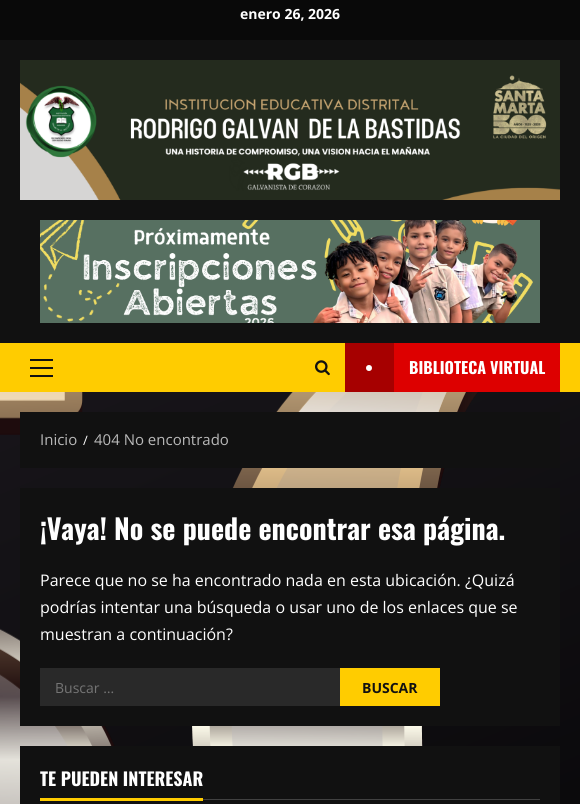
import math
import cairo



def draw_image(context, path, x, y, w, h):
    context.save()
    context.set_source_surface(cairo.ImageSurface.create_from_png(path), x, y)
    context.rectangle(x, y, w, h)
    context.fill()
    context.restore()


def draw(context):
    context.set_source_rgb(1, 1, 1)
    context.paint()
    draw_image(context, "images/1.png", 0, 392, 580, 412)
    context.set_source_rgb(9 / 255, 9 / 255, 9 / 255)
    context.rectangle(0, 0, 580, 40)
    context.fill()
    context.set_source_rgb(17 / 255, 17 / 255, 17 / 255)
    context.rectangle(0, 40, 580, 303)
    context.fill()
    draw_image(context, "images/2.png", 20, 60, 540, 140)
    draw_image(context, "images/3.png", 40, 220, 500, 103)
    context.set_source_rgb(1, 204 / 255, 0)
    context.rectangle(0, 343, 580, 49)
    context.fill()
    context.set_source_rgb(17 / 255, 17 / 255, 17 / 255)
    context.rectangle(30, 367, 23, 2)
    context.fill()
    context.rectangle(30, 359, 23, 2)
    context.fill()
    context.rectangle(30, 375, 23, 2)
    context.fill()
    draw_image(context, "images/4.png", 315, 360, 15, 16)
    context.set_source_rgb(221 / 255, 0, 0)
    context.rectangle(394, 343, 166, 49)
    context.fill()
    context.set_source_rgb(166 / 255, 0, 0)
    context.rectangle(345, 343, 49, 49)
    context.fill()
    context.set_source_rgb(1, 1, 1)
    context.arc(369, 368, 3, 0, 2 * math.pi)
    context.fill()
    context.set_source_rgb(17 / 255, 17 / 255, 17 / 255)
    context.rectangle(20, 412, 540, 56)
    context.fill()
    context.rectangle(20, 488, 540, 238)
    context.fill()
    context.set_source_rgb(41 / 255, 41 / 255, 41 / 255)
    context.rectangle(40, 668, 300, 38)
    context.fill()
    context.set_source_rgb(1, 204 / 255, 0)
    context.rectangle(340, 668, 100, 38)
    context.fill()
    context.set_source_rgb(17 / 255, 17 / 255, 17 / 255)
    context.rectangle(20, 746, 540, 58)
    context.fill()
    context.set_source_rgb(65 / 255, 65 / 255, 65 / 255)
    context.rectangle(203, 799, 337, 1)
    context.fill()
    context.set_source_rgb(1, 204 / 255, 0)
    context.rectangle(40, 798, 163, 3)
    context.fill()
    context.select_font_face("Open Sans", cairo.FontSlant.NORMAL, cairo.FontWeight.BOLD)
    context.set_font_size(14)
    context.set_source_rgb(1, 1, 1)
    context.move_to(240, 19)
    context.show_text("enero 26, 2026")
    context.select_font_face("Oswald", cairo.FontSlant.NORMAL, cairo.FontWeight.BOLD)
    context.set_font_size(16)
    context.move_to(409, 374)
    context.show_text("BIBLIOTECA VIRTUAL")
    context.select_font_face("Open Sans")
    context.set_font_size(15)
    context.set_source_rgb(184 / 255, 184 / 255, 184 / 255)
    context.move_to(40, 445)
    context.show_text("Inicio")
    context.set_font_size(13)
    context.set_source_rgb(1, 1, 1)
    context.move_to(83, 445)
    context.show_text("/")
    context.set_font_size(15)
    context.set_source_rgb(184 / 255, 184 / 255, 184 / 255)
    context.move_to(94, 445)
    context.show_text("404 No encontrado")
    context.select_font_face("Oswald", cairo.FontSlant.NORMAL, cairo.FontWeight.BOLD)
    context.set_font_size(28)
    context.set_source_rgb(1, 1, 1)
    context.move_to(40, 540)
    context.show_text("¡Vaya! No se puede encontrar esa página.")
    context.select_font_face("Open Sans")
    context.set_font_size(16)
    context.move_to(40, 586)
    context.show_text("Parece que no se ha encontrado nada en esta ubicación. ¿Quizá")
    context.move_to(40, 613)
    context.show_text("podrías intentar una búsqueda o usar uno de los enlaces que se")
    context.move_to(40, 640)
    context.show_text("muestran a continuación?")
    context.set_font_size(14)
    context.set_source_rgb(117 / 255, 117 / 255, 117 / 255)
    context.move_to(55, 693)
    context.show_text("Buscar …")
    context.select_font_face("Open Sans", cairo.FontSlant.NORMAL, cairo.FontWeight.BOLD)
    context.set_source_rgb(17 / 255, 17 / 255, 17 / 255)
    context.move_to(362, 693)
    context.show_text("BUSCAR")
    context.select_font_face("Oswald", cairo.FontSlant.NORMAL, cairo.FontWeight.BOLD)
    context.set_font_size(18)
    context.set_source_rgb(1, 1, 1)
    context.move_to(40, 786)
    context.show_text("TE PUEDEN INTERESAR")


surface = cairo.ImageSurface(cairo.Format.RGB24, 580, 804)
context = cairo.Context(surface)
options = cairo.FontOptions()
options.set_hint_metrics(cairo.HintMetrics.OFF)
options.set_hint_style(cairo.HintStyle.NONE)
context.set_font_options(options)
context.set_miter_limit(4)
draw(context)
surface.write_to_png("out.png")
